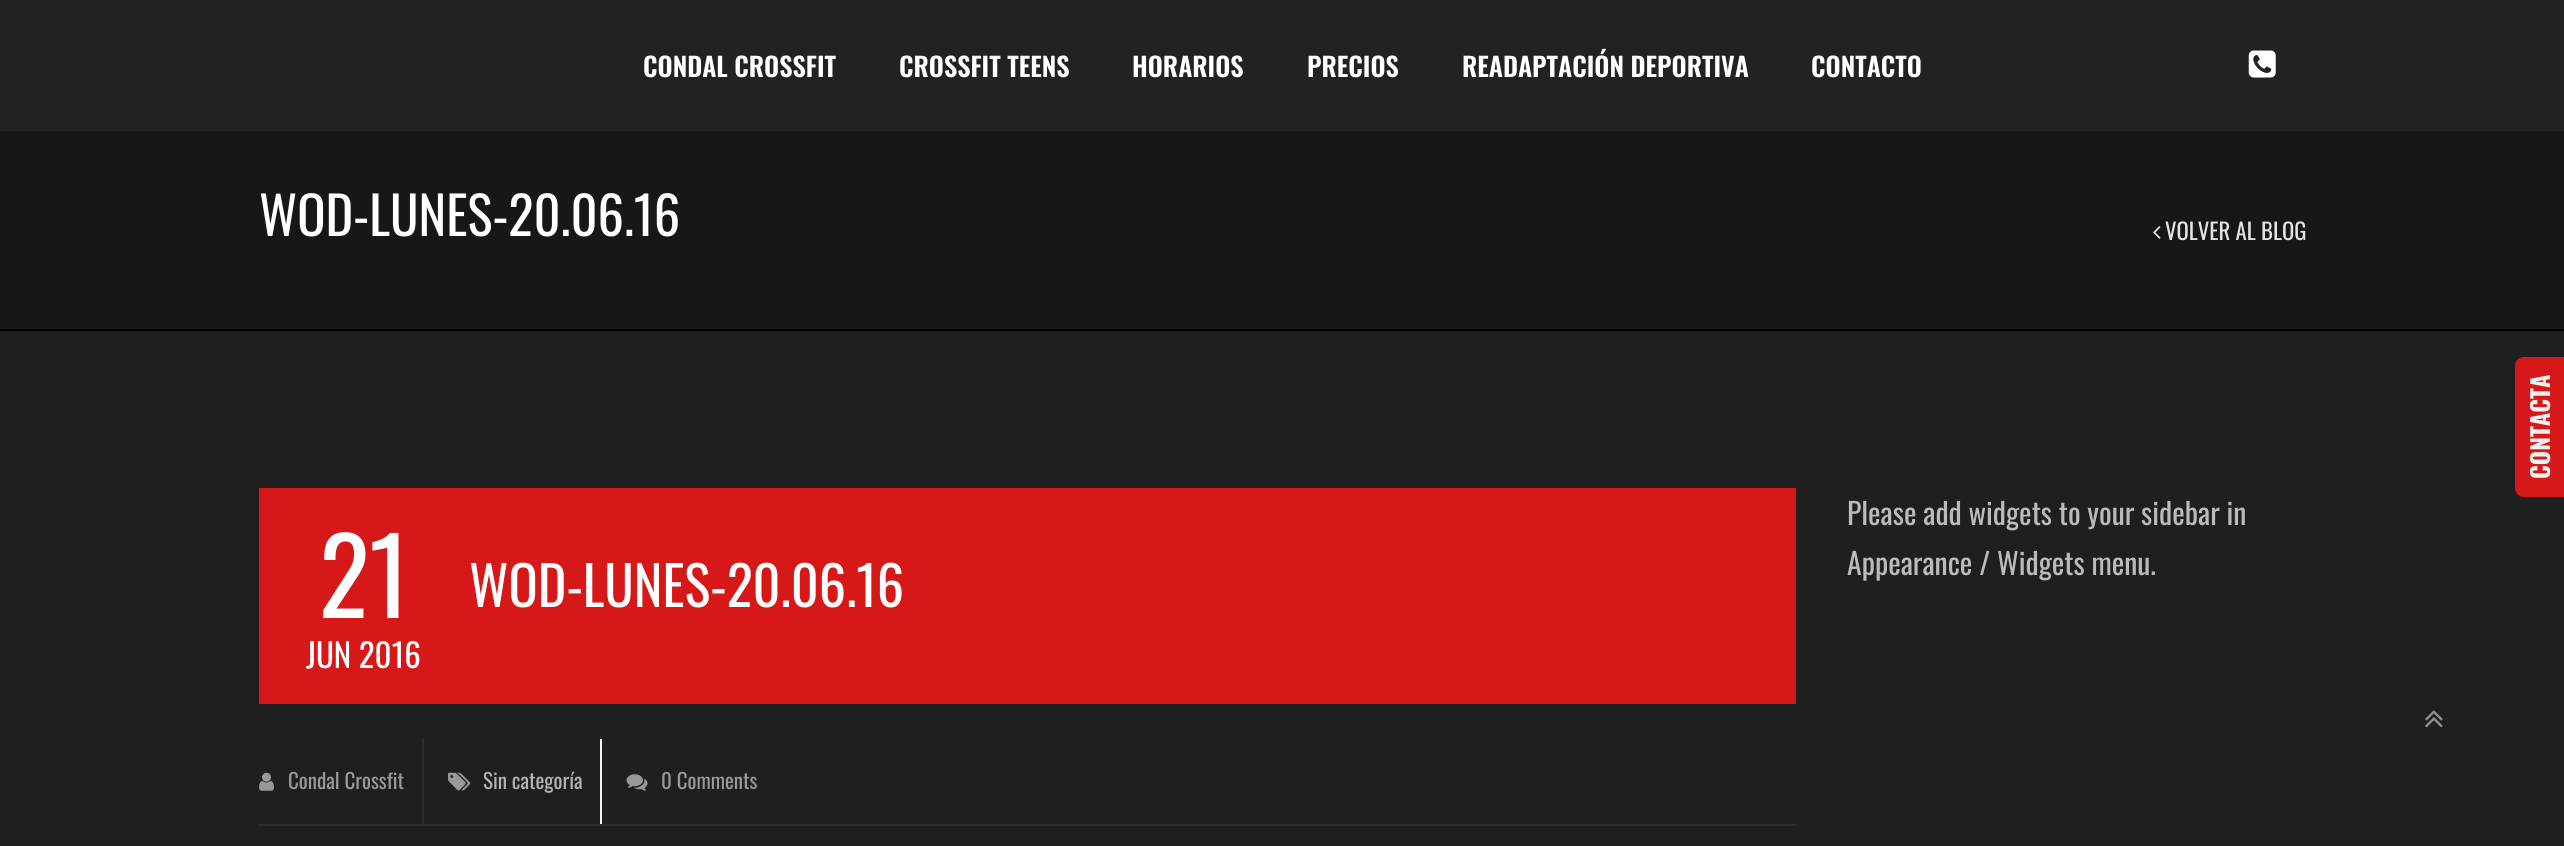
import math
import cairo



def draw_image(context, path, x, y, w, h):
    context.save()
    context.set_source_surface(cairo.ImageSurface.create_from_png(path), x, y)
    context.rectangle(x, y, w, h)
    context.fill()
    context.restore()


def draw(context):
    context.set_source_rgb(31 / 255, 31 / 255, 31 / 255)
    context.paint()
    context.set_source_rgb(34 / 255, 34 / 255, 34 / 255)
    context.rectangle(0, 0, 2564, 131)
    context.fill()
    draw_image(context, "images/1.png", 2248, 50, 28, 28)
    context.set_source_rgb(23 / 255, 23 / 255, 23 / 255)
    context.rectangle(0, 131, 2564, 198)
    context.fill()
    context.set_source_rgb(0, 0, 0)
    context.rectangle(0, 329, 2564, 2)
    context.fill()
    draw_image(context, "images/2.png", 2153, 226, 8, 13)
    context.set_source_rgb(215 / 255, 24 / 255, 24 / 255)
    context.new_path()
    context.move_to(2515, 488)
    context.line_to(2515, 366)
    context.curve_to(2515, 361, 2519, 357, 2524, 357)
    context.line_to(2564, 357)
    context.line_to(2564, 497)
    context.line_to(2524, 497)
    context.curve_to(2519, 497, 2515, 493, 2515, 488)
    context.close_path()
    context.fill()
    context.rectangle(259, 488, 1537, 216)
    context.fill()
    context.set_source_rgb(45 / 255, 45 / 255, 45 / 255)
    context.rectangle(259, 824, 1537, 2)
    context.fill()
    context.rectangle(422, 739, 2, 85)
    context.fill()
    draw_image(context, "images/3.png", 259, 772, 15, 19)
    context.set_source_rgb(245 / 255, 245 / 255, 245 / 255)
    context.rectangle(600, 739, 2, 85)
    context.fill()
    draw_image(context, "images/4.png", 448, 772, 23, 19)
    draw_image(context, "images/5.png", 626, 774, 22, 17)
    draw_image(context, "images/6.png", 2425, 710, 18, 18)
    context.select_font_face("Oswald SemiBold")
    context.set_font_size(26.25)
    context.set_source_rgb(1, 1, 1)
    context.move_to(643, 77)
    context.show_text("CONDAL CROSSFIT")
    context.move_to(899, 77)
    context.show_text("CROSSFIT TEENS")
    context.move_to(1132, 77)
    context.show_text("HORARIOS")
    context.move_to(1307, 77)
    context.show_text("PRECIOS")
    context.move_to(1462, 77)
    context.show_text("READAPTACIÓN DEPORTIVA")
    context.move_to(1811, 77)
    context.show_text("CONTACTO")
    context.select_font_face("Oswald")
    context.set_font_size(52.5)
    context.move_to(259, 236)
    context.show_text("WOD-LUNES-20.06.16")
    context.set_font_size(22.75)
    context.set_source_rgb(228 / 255, 228 / 255, 228 / 255)
    context.move_to(2165, 240)
    context.show_text("VOLVER AL BLOG")
    context.select_font_face("Oswald", cairo.FontSlant.NORMAL, cairo.FontWeight.BOLD)
    context.set_font_size(24.5)
    context.set_source_rgb(241 / 255, 241 / 255, 241 / 255)
    context.save()
    context.translate(2550, 479)
    context.rotate(-90 * math.pi / 180)
    context.move_to(0, 0)
    context.show_text("CONTACTA")
    context.restore()
    context.select_font_face("Oswald")
    context.set_font_size(105)
    context.set_source_rgb(1, 1, 1)
    context.move_to(319, 618)
    context.show_text("21")
    context.set_font_size(33)
    context.move_to(306, 668)
    context.show_text("JUN 2016")
    context.set_font_size(54.25)
    context.move_to(469, 607)
    context.show_text("WOD-LUNES-20.06.16")
    context.set_font_size(21)
    context.set_source_rgb(153 / 255, 153 / 255, 153 / 255)
    context.move_to(288, 789)
    context.show_text("Condal Crossfit")
    context.set_source_rgb(179 / 255, 179 / 255, 179 / 255)
    context.move_to(483, 789)
    context.show_text("Sin categoría")
    context.set_source_rgb(153 / 255, 153 / 255, 153 / 255)
    context.move_to(661, 789)
    context.show_text("0 Comments")
    context.set_font_size(29.75)
    context.set_source_rgb(187 / 255, 187 / 255, 187 / 255)
    context.move_to(1847, 525)
    context.show_text("Please add widgets to your sidebar in")
    context.move_to(1847, 575)
    context.show_text("Appearance / Widgets menu.")


surface = cairo.ImageSurface(cairo.Format.RGB24, 2564, 846)
context = cairo.Context(surface)
options = cairo.FontOptions()
options.set_hint_metrics(cairo.HintMetrics.OFF)
options.set_hint_style(cairo.HintStyle.NONE)
context.set_font_options(options)
context.set_miter_limit(4)
draw(context)
surface.write_to_png("out.png")
